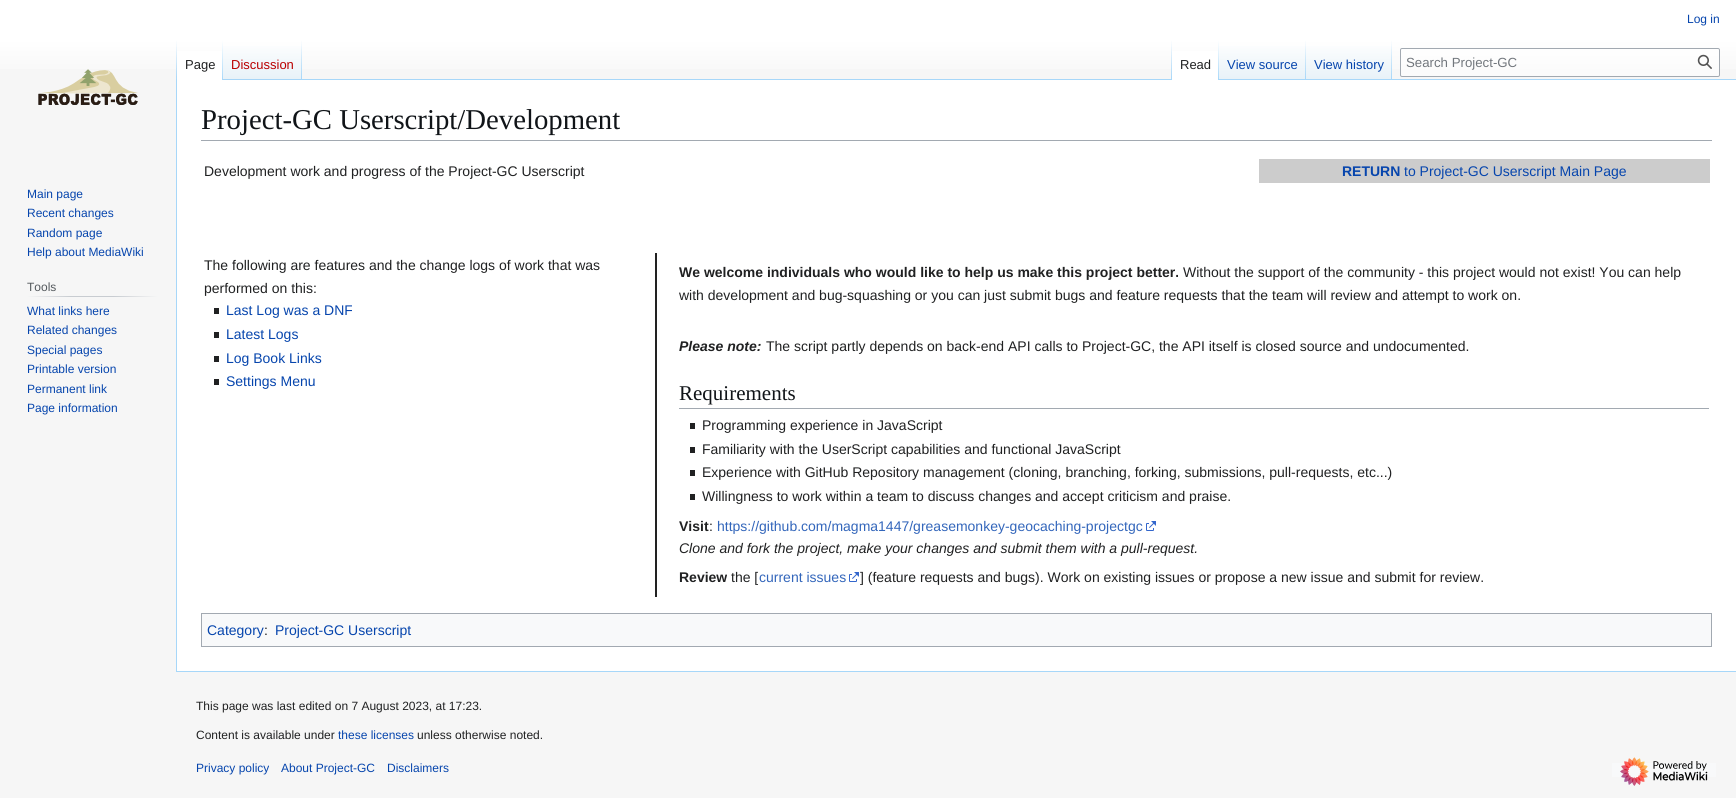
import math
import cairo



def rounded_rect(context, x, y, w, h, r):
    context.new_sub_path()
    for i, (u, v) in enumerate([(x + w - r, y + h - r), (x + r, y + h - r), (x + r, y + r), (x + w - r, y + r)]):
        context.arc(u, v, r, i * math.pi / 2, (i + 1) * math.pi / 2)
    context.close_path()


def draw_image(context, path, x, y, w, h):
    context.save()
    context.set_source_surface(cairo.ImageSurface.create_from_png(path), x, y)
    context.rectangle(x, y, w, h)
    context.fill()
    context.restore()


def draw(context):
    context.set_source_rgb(246 / 255, 246 / 255, 246 / 255)
    context.paint()
    gradient = cairo.LinearGradient(868, 0, 868, 80)
    gradient.add_color_stop_rgba(0.5, 1, 1, 1, 1)
    gradient.add_color_stop_rgba(1, 246 / 255, 246 / 255, 246 / 255, 1)
    context.set_source(gradient)
    context.rectangle(0, 0, 1736, 69)
    context.fill()
    context.set_source_rgb(167 / 255, 215 / 255, 249 / 255)
    context.rectangle(176, 671, 1560, 1)
    context.fill()
    context.rectangle(176, 79, 1, 593)
    context.fill()
    gradient = cairo.LinearGradient(177, 40, 177, 80)
    gradient.add_color_stop_rgba(0, 167 / 255, 215 / 255, 249 / 255, 0)
    gradient.add_color_stop_rgba(1, 167 / 255, 215 / 255, 249 / 255, 1)
    context.set_source(gradient)
    context.rectangle(176, 40, 1, 40)
    context.fill()
    context.set_source_rgb(1, 1, 1)
    context.rectangle(177, 51, 45, 29)
    context.fill()
    gradient = cairo.LinearGradient(223, 40, 223, 80)
    gradient.add_color_stop_rgba(0, 1, 1, 1, 1)
    gradient.add_color_stop_rgba(1, 167 / 255, 215 / 255, 249 / 255, 1)
    context.set_source(gradient)
    context.rectangle(222, 40, 1, 40)
    context.fill()
    gradient = cairo.LinearGradient(263, 80, 263, 40)
    gradient.add_color_stop_rgba(0, 119 / 255, 193 / 255, 246 / 255, 1)
    gradient.add_color_stop_rgba(0.03, 232 / 255, 242 / 255, 248 / 255, 1)
    gradient.add_color_stop_rgba(1, 1, 1, 1, 1)
    context.set_source(gradient)
    context.rectangle(223, 46, 79, 34)
    context.fill()
    gradient = cairo.LinearGradient(302, 40, 302, 80)
    gradient.add_color_stop_rgba(0, 167 / 255, 215 / 255, 249 / 255, 0)
    gradient.add_color_stop_rgba(1, 167 / 255, 215 / 255, 249 / 255, 1)
    context.set_source(gradient)
    context.rectangle(301, 40, 1, 40)
    context.fill()
    context.set_source_rgb(167 / 255, 215 / 255, 249 / 255)
    context.rectangle(302, 79, 1434, 1)
    context.fill()
    gradient = cairo.LinearGradient(1172, 40, 1172, 80)
    gradient.add_color_stop_rgba(0, 167 / 255, 215 / 255, 249 / 255, 0)
    gradient.add_color_stop_rgba(1, 167 / 255, 215 / 255, 249 / 255, 1)
    context.set_source(gradient)
    context.rectangle(1171, 40, 1, 40)
    context.fill()
    context.set_source_rgb(1, 1, 1)
    context.rectangle(1172, 51, 46, 29)
    context.fill()
    gradient = cairo.LinearGradient(1219, 40, 1219, 80)
    gradient.add_color_stop_rgba(0, 1, 1, 1, 1)
    gradient.add_color_stop_rgba(1, 167 / 255, 215 / 255, 249 / 255, 1)
    context.set_source(gradient)
    context.rectangle(1218, 40, 1, 40)
    context.fill()
    gradient = cairo.LinearGradient(1263, 80, 1263, 40)
    gradient.add_color_stop_rgba(0, 119 / 255, 193 / 255, 246 / 255, 1)
    gradient.add_color_stop_rgba(0.03, 232 / 255, 242 / 255, 248 / 255, 1)
    gradient.add_color_stop_rgba(1, 1, 1, 1, 1)
    context.set_source(gradient)
    context.rectangle(1219, 46, 87, 33)
    context.fill()
    gradient = cairo.LinearGradient(1306, 40, 1306, 80)
    gradient.add_color_stop_rgba(0, 167 / 255, 215 / 255, 249 / 255, 0)
    gradient.add_color_stop_rgba(1, 167 / 255, 215 / 255, 249 / 255, 1)
    context.set_source(gradient)
    context.rectangle(1305, 40, 1, 40)
    context.fill()
    gradient = cairo.LinearGradient(1349, 80, 1349, 40)
    gradient.add_color_stop_rgba(0, 119 / 255, 193 / 255, 246 / 255, 1)
    gradient.add_color_stop_rgba(0.03, 232 / 255, 242 / 255, 248 / 255, 1)
    gradient.add_color_stop_rgba(1, 1, 1, 1, 1)
    context.set_source(gradient)
    context.rectangle(1306, 46, 86, 33)
    context.fill()
    gradient = cairo.LinearGradient(1392, 40, 1392, 80)
    gradient.add_color_stop_rgba(0, 167 / 255, 215 / 255, 249 / 255, 0)
    gradient.add_color_stop_rgba(1, 167 / 255, 215 / 255, 249 / 255, 1)
    context.set_source(gradient)
    context.rectangle(1391, 40, 1, 40)
    context.fill()
    context.set_source_rgba(1, 1, 1, 0.5)
    rounded_rect(context, 1400.5, 48.5, 319, 28, 1.5)
    context.fill_preserve()
    context.set_source_rgb(162 / 255, 169 / 255, 177 / 255)
    context.set_line_width(1)
    context.stroke()
    draw_image(context, "images/1.png", 1697, 54, 15, 15)
    draw_image(context, "images/2.png", 38, 69, 100, 36)
    gradient = cairo.LinearGradient(27, 297, 158, 297)
    gradient.add_color_stop_rgba(0, 246 / 255, 246 / 255, 246 / 255, 1)
    gradient.add_color_stop_rgba(0.33, 200 / 255, 204 / 255, 209 / 255, 1)
    gradient.add_color_stop_rgba(0.66, 200 / 255, 204 / 255, 209 / 255, 1)
    gradient.add_color_stop_rgba(1, 246 / 255, 246 / 255, 246 / 255, 1)
    context.set_source(gradient)
    context.rectangle(27, 296, 131, 1)
    context.fill()
    context.set_source_rgb(1, 1, 1)
    context.rectangle(177, 80, 1559, 591)
    context.fill()
    context.set_source_rgb(162 / 255, 169 / 255, 177 / 255)
    context.rectangle(201, 140, 1511, 1)
    context.fill()
    context.set_source_rgb(204 / 255, 204 / 255, 204 / 255)
    context.rectangle(1259, 159, 451, 24)
    context.fill()
    context.set_source_rgb(32 / 255, 33 / 255, 34 / 255)
    context.rectangle(214, 308, 5, 6)
    context.fill()
    context.rectangle(214, 332, 5, 6)
    context.fill()
    context.rectangle(214, 356, 5, 6)
    context.fill()
    context.rectangle(214, 379, 5, 6)
    context.fill()
    context.set_source_rgb(34 / 255, 34 / 255, 34 / 255)
    context.rectangle(655, 253, 2, 344)
    context.fill()
    context.set_source_rgb(162 / 255, 169 / 255, 177 / 255)
    context.rectangle(679, 408, 1030, 1)
    context.fill()
    context.set_source_rgb(32 / 255, 33 / 255, 34 / 255)
    context.rectangle(690, 423, 5, 6)
    context.fill()
    context.rectangle(690, 447, 5, 6)
    context.fill()
    context.rectangle(690, 470, 5, 6)
    context.fill()
    context.rectangle(690, 494, 5, 6)
    context.fill()
    draw_image(context, "images/3.png", 1146, 521, 10, 10)
    draw_image(context, "images/3.png", 849, 572, 10, 10)
    context.set_source_rgb(248 / 255, 249 / 255, 250 / 255)
    context.rectangle(201.5, 613.5, 1510, 33)
    context.fill_preserve()
    context.set_source_rgb(162 / 255, 169 / 255, 177 / 255)
    context.stroke()
    context.set_source_rgb(248 / 255, 249 / 255, 250 / 255)
    context.rectangle(1612, 763, 104, 14)
    context.fill()
    draw_image(context, "images/4.png", 1620, 757, 88, 29)
    context.select_font_face("Liberation Sans")
    context.set_font_size(12)
    context.set_source_rgb(6 / 255, 69 / 255, 173 / 255)
    context.move_to(1687, 23)
    context.show_text("Log in")
    context.set_font_size(13)
    context.set_source_rgb(32 / 255, 33 / 255, 34 / 255)
    context.move_to(185, 69)
    context.show_text("Page")
    context.set_source_rgb(186 / 255, 0, 0)
    context.move_to(231, 69)
    context.show_text("Discussion")
    context.set_source_rgb(32 / 255, 33 / 255, 34 / 255)
    context.move_to(1180, 69)
    context.show_text("Read")
    context.set_source_rgb(6 / 255, 69 / 255, 173 / 255)
    context.move_to(1227, 69)
    context.show_text("View source")
    context.move_to(1314, 69)
    context.show_text("View history")
    context.set_font_size(13.25)
    context.set_source_rgb(114 / 255, 119 / 255, 125 / 255)
    context.move_to(1406, 67)
    context.show_text("Search Project-GC")
    context.set_font_size(12)
    context.set_source_rgb(6 / 255, 69 / 255, 173 / 255)
    context.move_to(27, 198)
    context.show_text("Main page")
    context.move_to(27, 217)
    context.show_text("Recent changes")
    context.move_to(27, 237)
    context.show_text("Random page")
    context.move_to(27, 256)
    context.show_text("Help about MediaWiki")
    context.set_source_rgb(84 / 255, 89 / 255, 93 / 255)
    context.move_to(27, 291)
    context.show_text("Tools")
    context.set_source_rgb(6 / 255, 69 / 255, 173 / 255)
    context.move_to(27, 315)
    context.show_text("What links here")
    context.move_to(27, 334)
    context.show_text("Related changes")
    context.move_to(27, 354)
    context.show_text("Special pages")
    context.move_to(27, 373)
    context.show_text("Printable version")
    context.move_to(27, 393)
    context.show_text("Permanent link")
    context.move_to(27, 412)
    context.show_text("Page information")
    context.select_font_face("Liberation Serif")
    context.set_font_size(28.75)
    context.set_source_rgb(16 / 255, 20 / 255, 24 / 255)
    context.move_to(201, 129)
    context.show_text("Project-GC Userscript/Development")
    context.select_font_face("Liberation Sans")
    context.set_font_size(14)
    context.set_source_rgb(32 / 255, 33 / 255, 34 / 255)
    context.move_to(204, 176)
    context.show_text("Development work and progress of the Project-GC Userscript")
    context.select_font_face("Liberation Sans", cairo.FontSlant.NORMAL, cairo.FontWeight.BOLD)
    context.set_source_rgb(6 / 255, 69 / 255, 173 / 255)
    context.move_to(1342, 176)
    context.show_text("RETURN")
    context.select_font_face("Liberation Sans")
    context.move_to(1404, 176)
    context.show_text("to Project-GC Userscript Main Page")
    context.set_source_rgb(32 / 255, 33 / 255, 34 / 255)
    context.move_to(204, 270)
    context.show_text("The following are features and the change logs of work that was")
    context.move_to(204, 293)
    context.show_text("performed on this:")
    context.set_source_rgb(6 / 255, 69 / 255, 173 / 255)
    context.move_to(226, 315)
    context.show_text("Last Log was a DNF")
    context.move_to(226, 339)
    context.show_text("Latest Logs")
    context.move_to(226, 363)
    context.show_text("Log Book Links")
    context.move_to(226, 386)
    context.show_text("Settings Menu")
    context.select_font_face("Liberation Sans", cairo.FontSlant.NORMAL, cairo.FontWeight.BOLD)
    context.set_source_rgb(32 / 255, 33 / 255, 34 / 255)
    context.move_to(679, 277)
    context.show_text("We welcome individuals who would like to help us make this project better.")
    context.select_font_face("Liberation Sans")
    context.move_to(1183, 277)
    context.show_text("Without the support of the community - this project would not exist! You can help")
    context.move_to(679, 300)
    context.show_text("with development and bug-squashing or you can just submit bugs and feature requests that the team will review and attempt to work on.")
    context.select_font_face("Liberation Sans", cairo.FontSlant.ITALIC, cairo.FontWeight.BOLD)
    context.move_to(679, 351)
    context.show_text("Please note:")
    context.select_font_face("Liberation Sans")
    context.move_to(766, 351)
    context.show_text("The script partly depends on back-end API calls to Project-GC, the API itself is closed source and undocumented.")
    context.select_font_face("Liberation Serif")
    context.set_font_size(21)
    context.set_source_rgb(16 / 255, 20 / 255, 24 / 255)
    context.move_to(679, 400)
    context.show_text("Requirements")
    context.select_font_face("Liberation Sans")
    context.set_font_size(14)
    context.set_source_rgb(32 / 255, 33 / 255, 34 / 255)
    context.move_to(702, 430)
    context.show_text("Programming experience in JavaScript")
    context.move_to(702, 454)
    context.show_text("Familiarity with the UserScript capabilities and functional JavaScript")
    context.move_to(702, 477)
    context.show_text("Experience with GitHub Repository management (cloning, branching, forking, submissions, pull-requests, etc...)")
    context.move_to(702, 501)
    context.show_text("Willingness to work within a team to discuss changes and accept criticism and praise.")
    context.select_font_face("Liberation Sans", cairo.FontSlant.NORMAL, cairo.FontWeight.BOLD)
    context.move_to(679, 531)
    context.show_text("Visit")
    context.select_font_face("Liberation Sans")
    context.move_to(709, 531)
    context.show_text(":")
    context.set_source_rgb(51 / 255, 102 / 255, 187 / 255)
    context.move_to(717, 531)
    context.show_text("https://github.com/magma1447/greasemonkey-geocaching-projectgc")
    context.select_font_face("Liberation Sans", cairo.FontSlant.ITALIC)
    context.set_source_rgb(32 / 255, 33 / 255, 34 / 255)
    context.move_to(679, 553)
    context.show_text("Clone and fork the project, make your changes and submit them with a pull-request.")
    context.select_font_face("Liberation Sans", cairo.FontSlant.NORMAL, cairo.FontWeight.BOLD)
    context.move_to(679, 582)
    context.show_text("Review")
    context.select_font_face("Liberation Sans")
    context.move_to(731, 582)
    context.show_text("the [")
    context.set_source_rgb(51 / 255, 102 / 255, 187 / 255)
    context.move_to(759, 582)
    context.show_text("current issues")
    context.set_source_rgb(32 / 255, 33 / 255, 34 / 255)
    context.move_to(860, 582)
    context.show_text("] (feature requests and bugs). Work on existing issues or propose a new issue and submit for review.")
    context.set_source_rgb(6 / 255, 69 / 255, 173 / 255)
    context.move_to(207, 635)
    context.show_text("Category")
    context.set_source_rgb(32 / 255, 33 / 255, 34 / 255)
    context.move_to(264, 635)
    context.show_text(":")
    context.set_source_rgb(6 / 255, 69 / 255, 173 / 255)
    context.move_to(275, 635)
    context.show_text("Project-GC Userscript")
    context.set_font_size(12)
    context.set_source_rgb(32 / 255, 33 / 255, 34 / 255)
    context.move_to(196, 710)
    context.show_text("This page was last edited on 7 August 2023, at 17:23.")
    context.move_to(196, 739)
    context.show_text("Content is available under")
    context.set_source_rgb(6 / 255, 69 / 255, 173 / 255)
    context.move_to(338, 739)
    context.show_text("these licenses")
    context.set_source_rgb(32 / 255, 33 / 255, 34 / 255)
    context.move_to(417, 739)
    context.show_text("unless otherwise noted.")
    context.set_source_rgb(6 / 255, 69 / 255, 173 / 255)
    context.move_to(196, 772)
    context.show_text("Privacy policy")
    context.move_to(281, 772)
    context.show_text("About Project-GC")
    context.move_to(387, 772)
    context.show_text("Disclaimers")


surface = cairo.ImageSurface(cairo.Format.RGB24, 1736, 798)
context = cairo.Context(surface)
options = cairo.FontOptions()
options.set_hint_metrics(cairo.HintMetrics.OFF)
options.set_hint_style(cairo.HintStyle.NONE)
context.set_font_options(options)
context.set_miter_limit(4)
draw(context)
surface.write_to_png("out.png")
